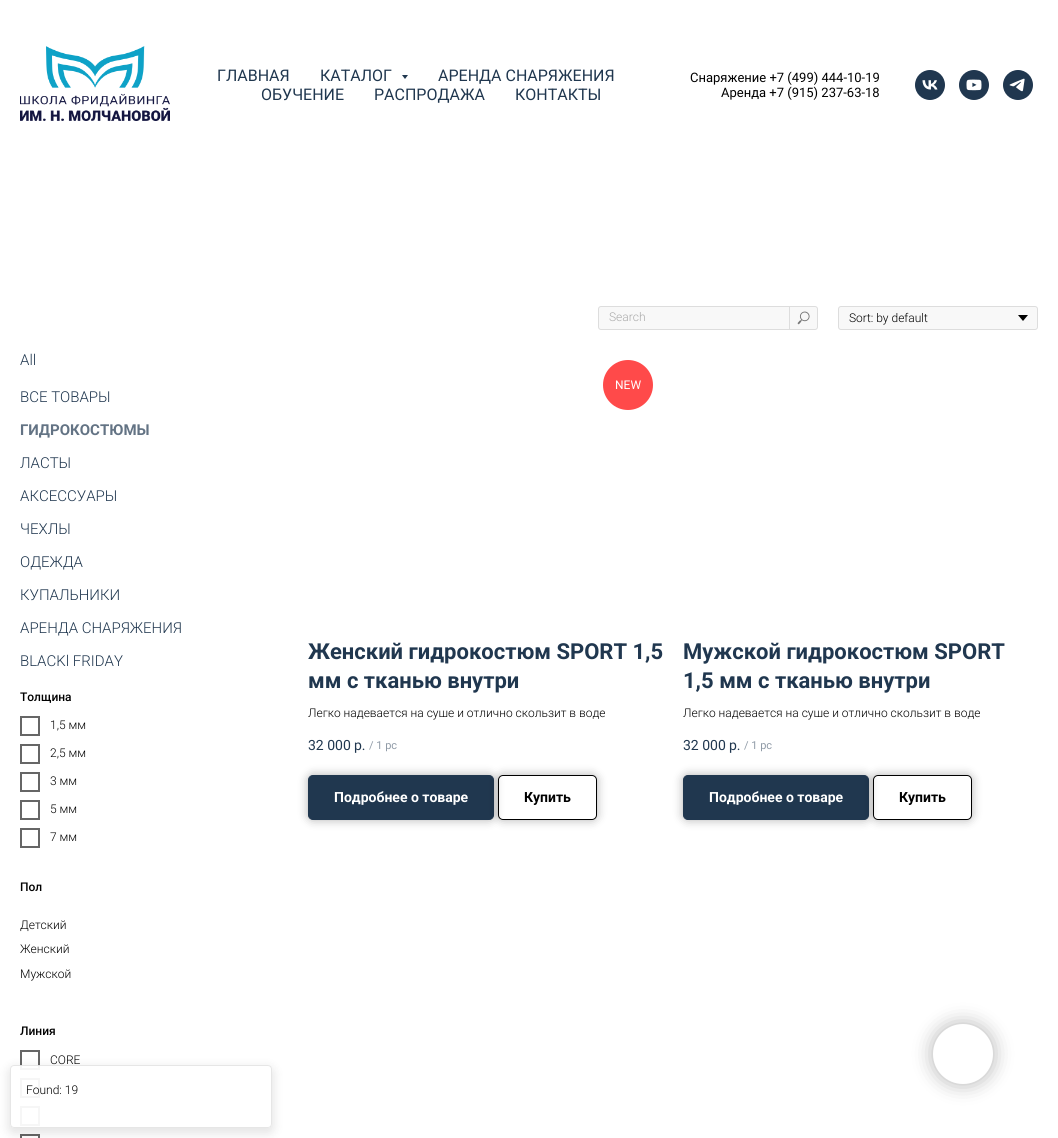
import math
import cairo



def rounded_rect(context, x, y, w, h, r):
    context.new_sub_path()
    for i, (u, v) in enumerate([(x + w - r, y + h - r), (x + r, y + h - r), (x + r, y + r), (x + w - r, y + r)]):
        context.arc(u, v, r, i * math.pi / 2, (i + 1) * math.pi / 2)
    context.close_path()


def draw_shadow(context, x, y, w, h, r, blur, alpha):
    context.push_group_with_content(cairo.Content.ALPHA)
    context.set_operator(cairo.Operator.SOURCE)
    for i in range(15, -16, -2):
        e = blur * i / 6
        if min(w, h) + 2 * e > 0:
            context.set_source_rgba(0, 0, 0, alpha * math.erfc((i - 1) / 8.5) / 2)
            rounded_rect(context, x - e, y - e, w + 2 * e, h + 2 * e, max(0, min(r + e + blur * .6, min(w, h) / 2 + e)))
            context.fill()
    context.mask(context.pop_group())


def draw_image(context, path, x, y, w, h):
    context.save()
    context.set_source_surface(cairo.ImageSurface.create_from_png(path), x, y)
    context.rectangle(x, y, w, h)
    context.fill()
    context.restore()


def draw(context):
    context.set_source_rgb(1, 1, 1)
    context.paint()
    draw_image(context, "images/1.png", 20, 46, 150, 75)
    context.set_source_rgb(32 / 255, 55 / 255, 79 / 255)
    context.new_path()
    context.move_to(402, 75)
    context.line_to(408, 75)
    context.line_to(405, 79)
    context.close_path()
    context.fill()
    draw_image(context, "images/2.png", 915, 70, 30, 30)
    draw_image(context, "images/3.png", 959, 70, 30, 30)
    draw_image(context, "images/4.png", 1003, 70, 30, 30)
    context.set_source_rgb(0, 0, 0)
    draw_shadow(context, 933, 1024, 60, 60, 30, 10, 0.3)
    context.set_source_rgb(1, 1, 1)
    context.arc(963, 1054, 30, 0, 2 * math.pi)
    context.fill()
    context.set_source_rgb(248 / 255, 248 / 255, 248 / 255)
    rounded_rect(context, 598.5, 306.5, 219, 23, 2.5)
    context.fill_preserve()
    context.set_source_rgb(221 / 255, 221 / 255, 221 / 255)
    context.set_line_width(1)
    context.stroke()
    context.rectangle(789, 306, 1, 24)
    context.fill()
    draw_image(context, "images/5.png", 797, 311, 13, 14)
    context.set_source_rgb(248 / 255, 248 / 255, 248 / 255)
    rounded_rect(context, 838.5, 306.5, 199, 23, 2.5)
    context.fill_preserve()
    context.set_source_rgb(221 / 255, 221 / 255, 221 / 255)
    context.stroke()
    context.set_source_rgb(0, 0, 0)
    context.new_path()
    context.move_to(1018, 315)
    context.line_to(1028, 315)
    context.line_to(1023, 321)
    context.close_path()
    context.fill()
    context.rectangle(21, 717, 18, 18)
    context.set_source_rgb(102 / 255, 102 / 255, 102 / 255)
    context.set_line_width(2)
    context.stroke()
    context.rectangle(21, 745, 18, 18)
    context.stroke()
    context.rectangle(21, 773, 18, 18)
    context.stroke()
    context.rectangle(21, 801, 18, 18)
    context.stroke()
    context.rectangle(21, 829, 18, 18)
    context.stroke()
    context.rectangle(21, 1051, 18, 18)
    context.stroke()
    context.rectangle(21, 1079, 18, 18)
    context.stroke()
    context.rectangle(21, 1107, 18, 18)
    context.stroke()
    context.rectangle(21, 1135, 18, 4)
    context.stroke()
    context.save()
    context.set_fill_rule(cairo.FillRule.EVEN_ODD)
    context.new_path()
    context.move_to(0, 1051)
    context.line_to(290, 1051)
    context.line_to(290, 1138)
    context.line_to(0, 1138)
    context.close_path()
    context.move_to(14, 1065)
    context.line_to(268, 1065)
    context.curve_to(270, 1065, 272, 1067, 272, 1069)
    context.line_to(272, 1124)
    context.curve_to(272, 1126, 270, 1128, 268, 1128)
    context.line_to(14, 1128)
    context.curve_to(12, 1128, 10, 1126, 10, 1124)
    context.line_to(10, 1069)
    context.curve_to(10, 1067, 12, 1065, 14, 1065)
    context.close_path()
    context.clip()
    context.set_source_rgb(0, 0, 0)
    draw_shadow(context, 8, 1067, 266, 67, 6, 5, 0.1)
    context.restore()
    context.set_source_rgba(1, 1, 1, 0.94)
    rounded_rect(context, 10, 1065, 262, 63, 4)
    context.fill()
    rounded_rect(context, 10.5, 1065.5, 261, 62, 3.5)
    context.set_source_rgba(0, 0, 0, 0.1)
    context.set_line_width(1)
    context.stroke()
    context.set_source_rgb(1, 74 / 255, 74 / 255)
    context.arc(628, 385, 25, 0, 2 * math.pi)
    context.fill()
    context.set_source_rgb(0, 0, 0)
    draw_shadow(context, 308, 775, 186, 45, 5, 5, 0.3)
    context.set_source_rgb(32 / 255, 55 / 255, 79 / 255)
    rounded_rect(context, 308.5, 775.5, 185, 44, 4.5)
    context.fill_preserve()
    context.stroke()
    context.save()
    context.set_fill_rule(cairo.FillRule.EVEN_ODD)
    context.new_path()
    context.move_to(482, 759)
    context.line_to(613, 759)
    context.line_to(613, 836)
    context.line_to(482, 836)
    context.close_path()
    context.move_to(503, 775)
    context.line_to(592, 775)
    context.curve_to(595, 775, 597, 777, 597, 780)
    context.line_to(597, 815)
    context.curve_to(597, 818, 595, 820, 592, 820)
    context.line_to(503, 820)
    context.curve_to(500, 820, 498, 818, 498, 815)
    context.line_to(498, 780)
    context.curve_to(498, 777, 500, 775, 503, 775)
    context.close_path()
    context.clip()
    context.set_source_rgb(0, 0, 0)
    draw_shadow(context, 498, 775, 99, 45, 5, 5, 0.3)
    context.restore()
    rounded_rect(context, 498.5, 775.5, 98, 44, 4.5)
    context.set_source_rgb(0, 0, 0)
    context.stroke()
    context.set_source_rgb(0, 0, 0)
    draw_shadow(context, 683, 775, 186, 45, 5, 5, 0.3)
    context.set_source_rgb(32 / 255, 55 / 255, 79 / 255)
    rounded_rect(context, 683.5, 775.5, 185, 44, 4.5)
    context.fill_preserve()
    context.stroke()
    context.save()
    context.set_fill_rule(cairo.FillRule.EVEN_ODD)
    context.new_path()
    context.move_to(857, 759)
    context.line_to(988, 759)
    context.line_to(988, 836)
    context.line_to(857, 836)
    context.close_path()
    context.move_to(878, 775)
    context.line_to(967, 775)
    context.curve_to(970, 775, 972, 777, 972, 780)
    context.line_to(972, 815)
    context.curve_to(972, 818, 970, 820, 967, 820)
    context.line_to(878, 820)
    context.curve_to(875, 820, 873, 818, 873, 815)
    context.line_to(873, 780)
    context.curve_to(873, 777, 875, 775, 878, 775)
    context.close_path()
    context.clip()
    context.set_source_rgb(0, 0, 0)
    draw_shadow(context, 873, 775, 99, 45, 5, 5, 0.3)
    context.restore()
    rounded_rect(context, 873.5, 775.5, 98, 44, 4.5)
    context.set_source_rgb(0, 0, 0)
    context.stroke()
    context.select_font_face("Roboto")
    context.set_font_size(16)
    context.set_source_rgb(32 / 255, 55 / 255, 79 / 255)
    context.move_to(217, 81)
    context.show_text("ГЛАВНАЯ")
    context.move_to(320, 81)
    context.show_text("КАТАЛОГ")
    context.move_to(438, 81)
    context.show_text("АРЕНДА СНАРЯЖЕНИЯ")
    context.move_to(261, 100)
    context.show_text("ОБУЧЕНИЕ")
    context.move_to(374, 100)
    context.show_text("РАСПРОДАЖА")
    context.move_to(515, 100)
    context.show_text("КОНТАКТЫ")
    context.set_font_size(13)
    context.set_source_rgb(0, 0, 0)
    context.move_to(690, 82)
    context.show_text("Снаряжение +7 (499) 444-10-19")
    context.move_to(721, 97)
    context.show_text("Аренда +7 (915) 237-63-18")
    context.select_font_face("Roboto Light")
    context.set_font_size(12)
    context.set_source_rgb(170 / 255, 170 / 255, 170 / 255)
    context.move_to(609, 321)
    context.show_text("Search")
    context.set_source_rgb(0, 0, 0)
    context.move_to(849, 322)
    context.show_text("Sort: by default")
    context.set_font_size(15)
    context.set_source_rgb(32 / 255, 55 / 255, 79 / 255)
    context.move_to(20, 365)
    context.show_text("All")
    context.move_to(20, 402)
    context.show_text("ВСЕ ТОВАРЫ")
    context.select_font_face("Roboto", cairo.FontSlant.NORMAL, cairo.FontWeight.BOLD)
    context.set_source_rgb(99 / 255, 115 / 255, 132 / 255)
    context.move_to(20, 435)
    context.show_text("ГИДРОКОСТЮМЫ")
    context.select_font_face("Roboto Light")
    context.set_source_rgb(32 / 255, 55 / 255, 79 / 255)
    context.move_to(20, 468)
    context.show_text("ЛАСТЫ")
    context.move_to(20, 501)
    context.show_text("АКСЕССУАРЫ")
    context.move_to(20, 534)
    context.show_text("ЧЕХЛЫ")
    context.move_to(20, 567)
    context.show_text("ОДЕЖДА")
    context.move_to(20, 600)
    context.show_text("КУПАЛЬНИКИ")
    context.move_to(20, 633)
    context.show_text("АРЕНДА СНАРЯЖЕНИЯ")
    context.move_to(20, 666)
    context.show_text("BLACKl FRIDAY")
    context.select_font_face("Roboto Medium")
    context.set_font_size(12)
    context.set_source_rgb(0, 0, 0)
    context.move_to(20, 701)
    context.show_text("Толщина")
    context.select_font_face("Roboto Light")
    context.move_to(50, 729)
    context.show_text("1,5 мм")
    context.move_to(50, 757)
    context.show_text("2,5 мм")
    context.move_to(50, 785)
    context.show_text("3 мм")
    context.move_to(50, 813)
    context.show_text("5 мм")
    context.move_to(50, 841)
    context.show_text("7 мм")
    context.select_font_face("Roboto Medium")
    context.move_to(20, 891)
    context.show_text("Пол")
    context.select_font_face("Roboto Light")
    context.move_to(20, 929)
    context.show_text("Детский")
    context.move_to(20, 953)
    context.show_text("Женский")
    context.move_to(20, 978)
    context.show_text("Мужской")
    context.select_font_face("Roboto Medium")
    context.move_to(20, 1035)
    context.show_text("Линия")
    context.select_font_face("Roboto Light")
    context.move_to(50, 1064)
    context.show_text("CORE")
    context.move_to(26, 1094)
    context.show_text("Found: 19")
    context.select_font_face("Roboto")
    context.set_source_rgb(1, 1, 1)
    context.move_to(615, 389)
    context.show_text("NEW")
    context.select_font_face("Roboto", cairo.FontSlant.NORMAL, cairo.FontWeight.BOLD)
    context.set_font_size(22)
    context.set_source_rgb(32 / 255, 55 / 255, 79 / 255)
    context.move_to(308, 659)
    context.show_text("Женский гидрокостюм SPORT 1,5")
    context.move_to(308, 688)
    context.show_text("мм с тканью внутри")
    context.select_font_face("Roboto Light")
    context.set_font_size(12)
    context.set_source_rgb(0, 0, 0)
    context.move_to(308, 717)
    context.show_text("Легко надевается на суше и отлично скользит в воде")
    context.select_font_face("Roboto")
    context.set_font_size(14)
    context.set_source_rgb(32 / 255, 55 / 255, 79 / 255)
    context.move_to(308, 750)
    context.show_text("32 000")
    context.move_to(354, 750)
    context.show_text("р.")
    context.set_font_size(11)
    context.set_source_rgb(144 / 255, 155 / 255, 167 / 255)
    context.move_to(369, 749)
    context.show_text("/ 1 pc")
    context.select_font_face("Roboto", cairo.FontSlant.NORMAL, cairo.FontWeight.BOLD)
    context.set_font_size(14)
    context.set_source_rgb(1, 1, 1)
    context.move_to(334, 802)
    context.show_text("Подробнее о товаре")
    context.set_source_rgb(0, 0, 0)
    context.move_to(524, 802)
    context.show_text("Купить")
    context.set_font_size(22)
    context.set_source_rgb(32 / 255, 55 / 255, 79 / 255)
    context.move_to(683, 659)
    context.show_text("Мужской гидрокостюм SPORT")
    context.move_to(683, 688)
    context.show_text("1,5 мм с тканью внутри")
    context.select_font_face("Roboto Light")
    context.set_font_size(12)
    context.set_source_rgb(0, 0, 0)
    context.move_to(683, 717)
    context.show_text("Легко надевается на суше и отлично скользит в воде")
    context.select_font_face("Roboto")
    context.set_font_size(14)
    context.set_source_rgb(32 / 255, 55 / 255, 79 / 255)
    context.move_to(683, 750)
    context.show_text("32 000")
    context.move_to(729, 750)
    context.show_text("р.")
    context.set_font_size(11)
    context.set_source_rgb(144 / 255, 155 / 255, 167 / 255)
    context.move_to(744, 749)
    context.show_text("/ 1 pc")
    context.select_font_face("Roboto", cairo.FontSlant.NORMAL, cairo.FontWeight.BOLD)
    context.set_font_size(14)
    context.set_source_rgb(1, 1, 1)
    context.move_to(709, 802)
    context.show_text("Подробнее о товаре")
    context.set_source_rgb(0, 0, 0)
    context.move_to(899, 802)
    context.show_text("Купить")


surface = cairo.ImageSurface(cairo.Format.RGB24, 1058, 1138)
context = cairo.Context(surface)
options = cairo.FontOptions()
options.set_hint_metrics(cairo.HintMetrics.OFF)
options.set_hint_style(cairo.HintStyle.NONE)
context.set_font_options(options)
context.set_miter_limit(4)
draw(context)
surface.write_to_png("out.png")
